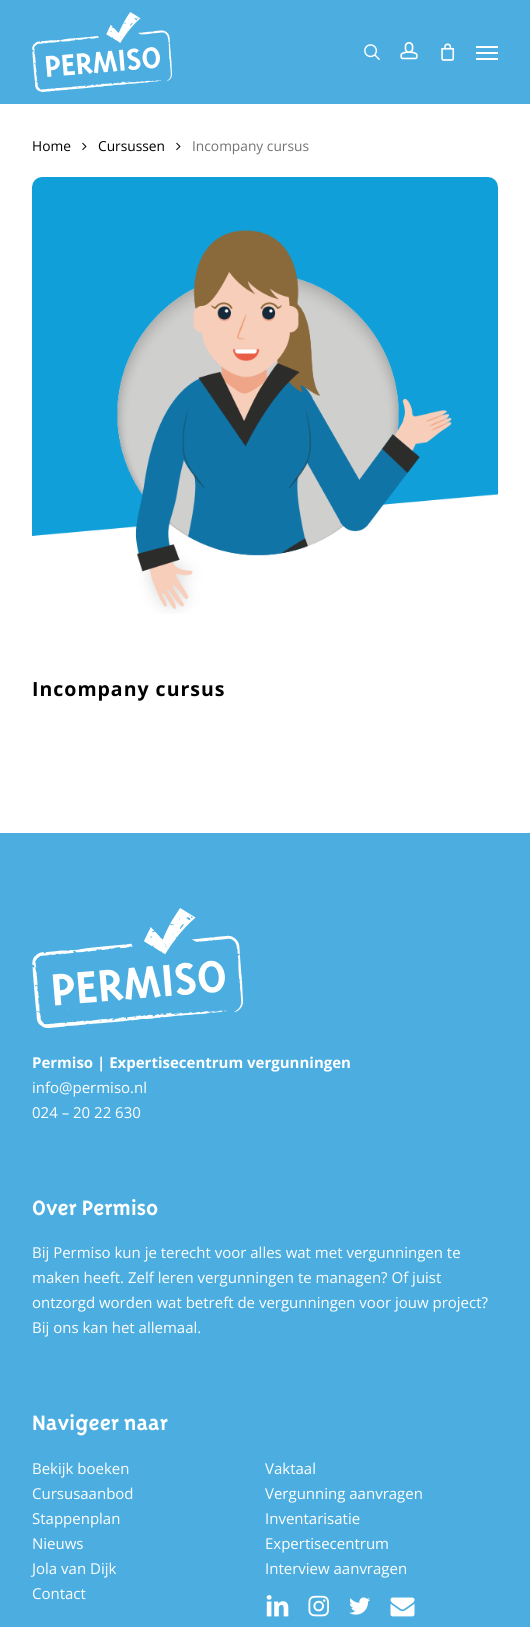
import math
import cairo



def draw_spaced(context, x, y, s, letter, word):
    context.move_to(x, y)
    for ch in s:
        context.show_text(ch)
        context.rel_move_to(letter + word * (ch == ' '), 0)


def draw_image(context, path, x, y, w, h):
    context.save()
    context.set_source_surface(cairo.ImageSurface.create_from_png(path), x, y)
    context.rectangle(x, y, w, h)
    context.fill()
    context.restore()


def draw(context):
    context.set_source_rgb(1, 1, 1)
    context.paint()
    context.set_source_rgb(76 / 255, 174 / 255, 224 / 255)
    context.rectangle(0, 0, 530, 104)
    context.fill()
    draw_image(context, "images/1.png", 32, 12, 140, 80)
    draw_image(context, "images/2.png", 364, 44, 16, 16)
    draw_image(context, "images/3.png", 400, 42, 18, 18)
    draw_image(context, "images/4.png", 441, 43, 14, 18)
    context.set_source_rgb(1, 1, 1)
    context.rectangle(476, 46, 22, 2)
    context.fill()
    context.rectangle(476, 58, 22, 2)
    context.fill()
    context.rectangle(476, 52, 22, 2)
    context.fill()
    draw_image(context, "images/5.png", 82, 142, 5, 9)
    draw_image(context, "images/5.png", 176, 142, 5, 9)
    draw_image(context, "images/6.png", 32, 177, 466, 437)
    context.set_source_rgb(76 / 255, 174 / 255, 224 / 255)
    context.rectangle(0, 833, 530, 794)
    context.fill()
    draw_image(context, "images/7.png", 32, 908, 211, 120)
    draw_image(context, "images/8.png", 266, 1595, 23, 22)
    draw_image(context, "images/9.png", 308, 1595, 21, 22)
    draw_image(context, "images/10.png", 349, 1597, 21, 18)
    draw_image(context, "images/11.png", 390, 1597, 25, 20)
    context.select_font_face("Open Sans")
    context.set_font_size(13.75)
    context.set_source_rgb(0, 0, 0)
    context.move_to(32, 151)
    context.show_text("Home")
    context.move_to(98, 151)
    context.show_text("Cursussen")
    context.set_source_rgb(115 / 255, 115 / 255, 115 / 255)
    context.move_to(192, 151)
    context.show_text("Incompany cursus")
    context.select_font_face("Open Sans", cairo.FontSlant.NORMAL, cairo.FontWeight.BOLD)
    context.set_font_size(19.5)
    context.set_source_rgb(0, 0, 0)
    draw_spaced(context, 32, 696, "Incompany cursus", 1, 0)
    context.set_font_size(15)
    context.set_source_rgb(1, 1, 1)
    context.move_to(32, 1068)
    context.show_text("Permiso | Expertisecentrum vergunningen")
    context.select_font_face("Open Sans")
    context.move_to(32, 1093)
    context.show_text("info@permiso.nl")
    context.move_to(32, 1118)
    context.show_text("024 – 20 22 630")
    context.select_font_face("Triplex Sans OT", cairo.FontSlant.NORMAL, cairo.FontWeight.BOLD)
    context.set_font_size(24)
    context.move_to(32, 1215)
    context.show_text("Over Permiso")
    context.select_font_face("Open Sans")
    context.set_font_size(15)
    context.move_to(32, 1258)
    context.show_text("Bij Permiso kun je terecht voor alles wat met vergunningen te")
    context.move_to(32, 1283)
    context.show_text("maken heeft. Zelf leren vergunningen te managen? Of juist")
    context.move_to(32, 1308)
    context.show_text("ontzorgd worden wat betreft de vergunningen voor jouw project?")
    context.move_to(32, 1333)
    context.show_text("Bij ons kan het allemaal.")
    context.select_font_face("Triplex Sans OT", cairo.FontSlant.NORMAL, cairo.FontWeight.BOLD)
    context.set_font_size(24)
    context.move_to(32, 1430)
    context.show_text("Navigeer naar")
    context.select_font_face("Open Sans")
    context.set_font_size(15)
    context.move_to(32, 1474)
    context.show_text("Bekijk boeken")
    context.move_to(265, 1474)
    context.show_text("Vaktaal")
    context.move_to(32, 1499)
    context.show_text("Cursusaanbod")
    context.move_to(265, 1499)
    context.show_text("Vergunning aanvragen")
    context.move_to(32, 1524)
    context.show_text("Stappenplan")
    context.move_to(265, 1524)
    context.show_text("Inventarisatie")
    context.move_to(32, 1549)
    context.show_text("Nieuws")
    context.move_to(265, 1549)
    context.show_text("Expertisecentrum")
    context.move_to(32, 1574)
    context.show_text("Jola van Dijk")
    context.move_to(265, 1574)
    context.show_text("Interview aanvragen")
    context.move_to(32, 1599)
    context.show_text("Contact")


surface = cairo.ImageSurface(cairo.Format.RGB24, 530, 1627)
context = cairo.Context(surface)
options = cairo.FontOptions()
options.set_hint_metrics(cairo.HintMetrics.OFF)
options.set_hint_style(cairo.HintStyle.NONE)
context.set_font_options(options)
context.set_miter_limit(4)
draw(context)
surface.write_to_png("out.png")
